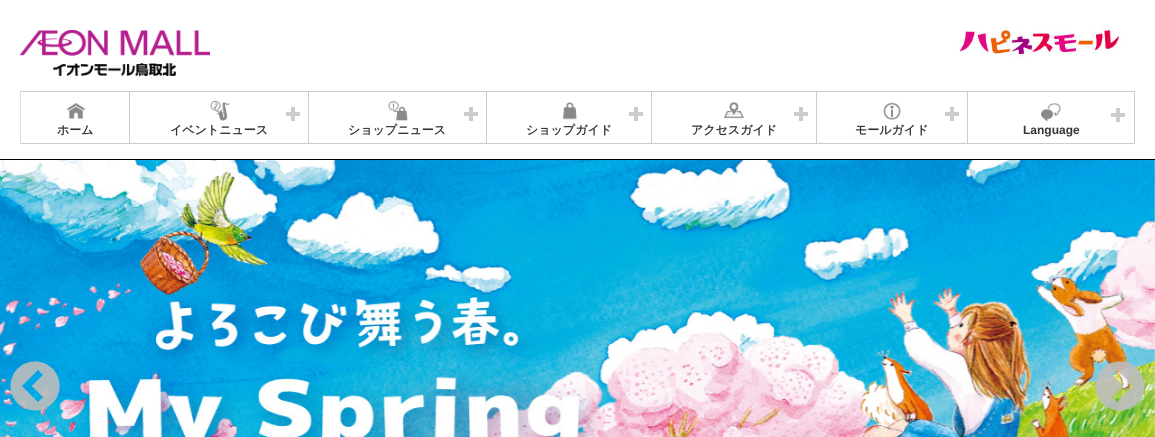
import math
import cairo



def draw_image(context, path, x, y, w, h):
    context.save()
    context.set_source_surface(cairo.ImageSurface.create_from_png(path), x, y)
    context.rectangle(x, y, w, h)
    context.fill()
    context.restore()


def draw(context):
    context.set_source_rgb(1, 1, 1)
    context.paint()
    context.set_source_rgb(0, 0, 0)
    context.rectangle(0, 159, 1155, 1)
    context.fill()
    draw_image(context, "images/1.png", 20, 30, 190, 46)
    draw_image(context, "images/2.png", 959, 26, 165, 33)
    context.set_source_rgb(221 / 255, 221 / 255, 221 / 255)
    context.rectangle(20, 91, 1, 53)
    context.fill()
    draw_image(context, "images/3.png", 67, 102, 18, 17)
    context.set_source_rgb(204 / 255, 204 / 255, 204 / 255)
    context.rectangle(21, 91, 947, 1)
    context.fill()
    context.rectangle(129, 91, 1, 53)
    context.fill()
    context.rectangle(21, 143, 109, 1)
    context.fill()
    draw_image(context, "images/4.png", 210, 101, 20, 20)
    context.rectangle(286, 112, 14, 4)
    context.fill()
    context.rectangle(291, 107, 4, 14)
    context.fill()
    context.rectangle(308, 91, 1, 53)
    context.fill()
    context.rectangle(130, 143, 179, 1)
    context.fill()
    draw_image(context, "images/5.png", 388, 101, 20, 20)
    context.rectangle(464, 112, 14, 4)
    context.fill()
    context.rectangle(469, 107, 4, 14)
    context.fill()
    context.rectangle(486, 91, 1, 53)
    context.fill()
    context.rectangle(309, 143, 178, 1)
    context.fill()
    draw_image(context, "images/6.png", 562, 102, 15, 18)
    context.rectangle(629, 112, 14, 4)
    context.fill()
    context.rectangle(634, 107, 4, 14)
    context.fill()
    context.rectangle(651, 91, 1, 53)
    context.fill()
    context.rectangle(487, 143, 165, 1)
    context.fill()
    draw_image(context, "images/7.png", 724, 102, 20, 17)
    context.rectangle(794, 112, 14, 4)
    context.fill()
    context.rectangle(799, 107, 4, 14)
    context.fill()
    context.rectangle(816, 91, 1, 53)
    context.fill()
    context.rectangle(652, 143, 165, 1)
    context.fill()
    draw_image(context, "images/8.png", 883, 102, 18, 18)
    context.rectangle(945, 112, 14, 4)
    context.fill()
    context.rectangle(950, 107, 4, 14)
    context.fill()
    context.rectangle(967, 91, 1, 53)
    context.fill()
    context.rectangle(817, 143, 317, 1)
    context.fill()
    context.rectangle(968, 91, 167, 1)
    context.fill()
    context.rectangle(1134, 91, 1, 53)
    context.fill()
    draw_image(context, "images/9.png", 1041, 103, 20, 19)
    context.rectangle(1111, 113, 14, 4)
    context.fill()
    context.rectangle(1116, 108, 4, 14)
    context.fill()
    draw_image(context, "images/10.png", 0, 160, 1155, 277)
    draw_image(context, "images/11.png", 10, 361, 50, 50)
    draw_image(context, "images/12.png", 1095, 361, 50, 50)
    context.select_font_face("WenQuanYi Zen Hei", cairo.FontSlant.NORMAL, cairo.FontWeight.BOLD)
    context.set_font_size(12)
    context.set_source_rgb(51 / 255, 51 / 255, 51 / 255)
    context.move_to(57, 134)
    context.show_text("ホーム")
    context.move_to(170, 134)
    context.show_text("イベントニュース")
    context.move_to(348, 134)
    context.show_text("ショップニュース")
    context.move_to(526, 134)
    context.show_text("ショップガイド")
    context.move_to(691, 134)
    context.show_text("アクセスガイド")
    context.move_to(855, 134)
    context.show_text("モールガイド")
    context.select_font_face("Liberation Sans", cairo.FontSlant.NORMAL, cairo.FontWeight.BOLD)
    context.move_to(1023, 134)
    context.show_text("Language")


surface = cairo.ImageSurface(cairo.Format.RGB24, 1155, 437)
context = cairo.Context(surface)
options = cairo.FontOptions()
options.set_hint_metrics(cairo.HintMetrics.OFF)
options.set_hint_style(cairo.HintStyle.NONE)
context.set_font_options(options)
context.set_miter_limit(4)
draw(context)
surface.write_to_png("out.png")
